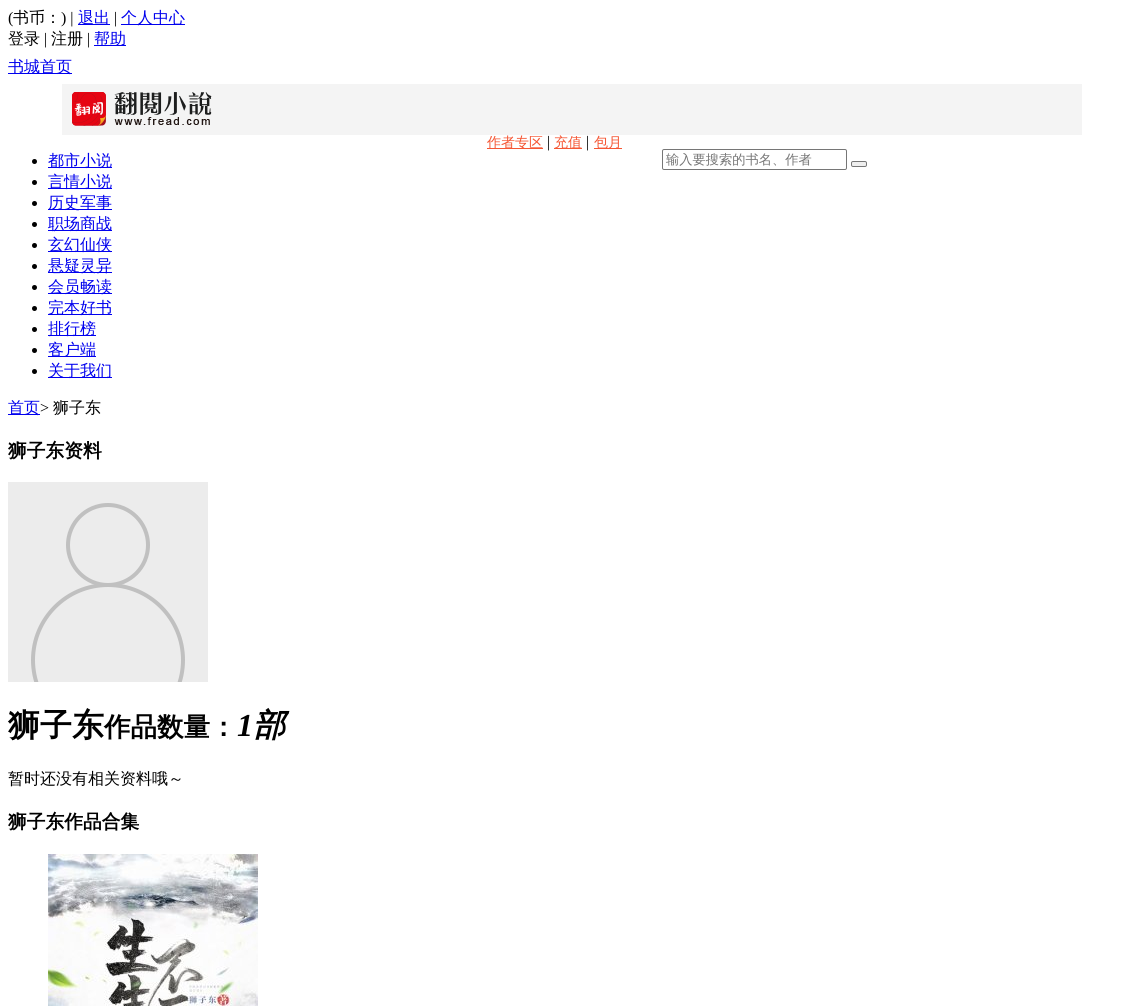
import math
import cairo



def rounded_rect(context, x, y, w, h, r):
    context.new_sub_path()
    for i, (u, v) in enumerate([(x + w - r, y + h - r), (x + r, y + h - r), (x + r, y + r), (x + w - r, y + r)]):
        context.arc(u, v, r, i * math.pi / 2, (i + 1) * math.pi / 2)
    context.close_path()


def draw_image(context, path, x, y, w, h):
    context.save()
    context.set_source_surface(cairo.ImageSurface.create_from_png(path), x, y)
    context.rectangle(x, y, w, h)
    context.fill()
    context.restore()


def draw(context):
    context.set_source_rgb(1, 1, 1)
    context.paint()
    context.set_source_rgb(0, 0, 238 / 255)
    context.rectangle(78, 24, 32, 1)
    context.fill()
    context.rectangle(121, 24, 64, 1)
    context.fill()
    context.rectangle(94, 45, 32, 1)
    context.fill()
    context.rectangle(8, 73, 64, 1)
    context.fill()
    context.set_source_rgb(0, 0, 0)
    context.arc(34.5, 161.5, 2.5, 0, 2 * math.pi)
    context.fill()
    context.set_source_rgb(0, 0, 238 / 255)
    context.rectangle(48, 167, 64, 1)
    context.fill()
    context.set_source_rgb(0, 0, 0)
    context.arc(34.5, 182.5, 2.5, 0, 2 * math.pi)
    context.fill()
    context.set_source_rgb(0, 0, 238 / 255)
    context.rectangle(48, 188, 64, 1)
    context.fill()
    context.set_source_rgb(0, 0, 0)
    context.arc(34.5, 203.5, 2.5, 0, 2 * math.pi)
    context.fill()
    context.set_source_rgb(0, 0, 238 / 255)
    context.rectangle(48, 209, 64, 1)
    context.fill()
    context.set_source_rgb(0, 0, 0)
    context.arc(34.5, 224.5, 2.5, 0, 2 * math.pi)
    context.fill()
    context.set_source_rgb(0, 0, 238 / 255)
    context.rectangle(48, 230, 64, 1)
    context.fill()
    context.set_source_rgb(0, 0, 0)
    context.arc(34.5, 245.5, 2.5, 0, 2 * math.pi)
    context.fill()
    context.set_source_rgb(0, 0, 238 / 255)
    context.rectangle(48, 251, 64, 1)
    context.fill()
    context.set_source_rgb(0, 0, 0)
    context.arc(34.5, 266.5, 2.5, 0, 2 * math.pi)
    context.fill()
    context.set_source_rgb(0, 0, 238 / 255)
    context.rectangle(48, 272, 64, 1)
    context.fill()
    context.set_source_rgb(0, 0, 0)
    context.arc(34.5, 287.5, 2.5, 0, 2 * math.pi)
    context.fill()
    context.set_source_rgb(0, 0, 238 / 255)
    context.rectangle(48, 293, 64, 1)
    context.fill()
    context.set_source_rgb(0, 0, 0)
    context.arc(34.5, 308.5, 2.5, 0, 2 * math.pi)
    context.fill()
    context.set_source_rgb(0, 0, 238 / 255)
    context.rectangle(48, 314, 64, 1)
    context.fill()
    context.set_source_rgb(0, 0, 0)
    context.arc(34.5, 329.5, 2.5, 0, 2 * math.pi)
    context.fill()
    context.set_source_rgb(0, 0, 238 / 255)
    context.rectangle(48, 335, 48, 1)
    context.fill()
    context.set_source_rgb(0, 0, 0)
    context.arc(34.5, 350.5, 2.5, 0, 2 * math.pi)
    context.fill()
    context.set_source_rgb(0, 0, 238 / 255)
    context.rectangle(48, 356, 48, 1)
    context.fill()
    context.set_source_rgb(0, 0, 0)
    context.arc(34.5, 371.5, 2.5, 0, 2 * math.pi)
    context.fill()
    context.set_source_rgb(0, 0, 238 / 255)
    context.rectangle(48, 377, 64, 1)
    context.fill()
    context.set_source_rgb(244 / 255, 244 / 255, 244 / 255)
    context.rectangle(62, 84, 1020, 51)
    context.fill()
    draw_image(context, "images/1.png", 72, 92, 140, 34)
    context.set_source_rgb(245 / 255, 86 / 255, 52 / 255)
    context.rectangle(487, 148, 56, 1)
    context.fill()
    context.rectangle(554, 148, 28, 1)
    context.fill()
    context.rectangle(594, 148, 28, 1)
    context.fill()
    rounded_rect(context, 662.5, 149.5, 184, 20, 1.5)
    context.set_source_rgb(118 / 255, 118 / 255, 118 / 255)
    context.set_line_width(1)
    context.stroke()
    context.set_source_rgb(239 / 255, 239 / 255, 239 / 255)
    rounded_rect(context, 851.5, 161.5, 15, 5, 1.5)
    context.fill_preserve()
    context.set_source_rgb(118 / 255, 118 / 255, 118 / 255)
    context.stroke()
    context.set_source_rgb(0, 0, 238 / 255)
    context.rectangle(8, 414, 32, 1)
    context.fill()
    draw_image(context, "images/2.png", 8, 482, 200, 200)
    draw_image(context, "images/3.png", 48, 854, 210, 152)
    context.select_font_face("Liberation Serif")
    context.set_font_size(16)
    context.set_source_rgb(0, 0, 0)
    context.move_to(8, 23)
    context.show_text("(")
    context.select_font_face("WenQuanYi Zen Hei Medium")
    context.move_to(13, 23)
    context.show_text("书币：")
    context.select_font_face("Liberation Serif")
    context.move_to(61, 23)
    context.show_text(") |")
    context.select_font_face("WenQuanYi Zen Hei Medium")
    context.set_source_rgb(0, 0, 238 / 255)
    context.move_to(78, 23)
    context.show_text("退出")
    context.select_font_face("Liberation Serif")
    context.set_source_rgb(0, 0, 0)
    context.move_to(114, 23)
    context.show_text("|")
    context.select_font_face("WenQuanYi Zen Hei Medium")
    context.set_source_rgb(0, 0, 238 / 255)
    context.move_to(121, 23)
    context.show_text("个人中心")
    context.set_source_rgb(0, 0, 0)
    context.move_to(8, 44)
    context.show_text("登录")
    context.select_font_face("Liberation Serif")
    context.move_to(44, 44)
    context.show_text("|")
    context.select_font_face("WenQuanYi Zen Hei Medium")
    context.move_to(51, 44)
    context.show_text("注册")
    context.select_font_face("Liberation Serif")
    context.move_to(87, 44)
    context.show_text("|")
    context.select_font_face("WenQuanYi Zen Hei Medium")
    context.set_source_rgb(0, 0, 238 / 255)
    context.move_to(94, 44)
    context.show_text("帮助")
    context.move_to(8, 72)
    context.show_text("书城首页")
    context.move_to(48, 166)
    context.show_text("都市小说")
    context.move_to(48, 187)
    context.show_text("言情小说")
    context.move_to(48, 208)
    context.show_text("历史军事")
    context.move_to(48, 229)
    context.show_text("职场商战")
    context.move_to(48, 250)
    context.show_text("玄幻仙侠")
    context.move_to(48, 271)
    context.show_text("悬疑灵异")
    context.move_to(48, 292)
    context.show_text("会员畅读")
    context.move_to(48, 313)
    context.show_text("完本好书")
    context.move_to(48, 334)
    context.show_text("排行榜")
    context.move_to(48, 355)
    context.show_text("客户端")
    context.move_to(48, 376)
    context.show_text("关于我们")
    context.set_font_size(14)
    context.set_source_rgb(245 / 255, 86 / 255, 52 / 255)
    context.move_to(487, 147)
    context.show_text("作者专区")
    context.select_font_face("Liberation Serif")
    context.set_font_size(16)
    context.set_source_rgb(0, 0, 0)
    context.move_to(547, 147)
    context.show_text("|")
    context.select_font_face("WenQuanYi Zen Hei Medium")
    context.set_font_size(14)
    context.set_source_rgb(245 / 255, 86 / 255, 52 / 255)
    context.move_to(554, 147)
    context.show_text("充值")
    context.select_font_face("Liberation Serif")
    context.set_font_size(16)
    context.set_source_rgb(0, 0, 0)
    context.move_to(586, 147)
    context.show_text("|")
    context.select_font_face("WenQuanYi Zen Hei Medium")
    context.set_font_size(14)
    context.set_source_rgb(245 / 255, 86 / 255, 52 / 255)
    context.move_to(594, 147)
    context.show_text("包月")
    context.set_font_size(13.25)
    context.set_source_rgb(117 / 255, 117 / 255, 117 / 255)
    context.move_to(666, 164)
    context.show_text("输入要搜索的书名、作者")
    context.set_font_size(16)
    context.set_source_rgb(0, 0, 238 / 255)
    context.move_to(8, 413)
    context.show_text("首页")
    context.select_font_face("Liberation Serif")
    context.set_source_rgb(0, 0, 0)
    context.move_to(40, 413)
    context.show_text(">")
    context.select_font_face("WenQuanYi Zen Hei Medium")
    context.move_to(53, 413)
    context.show_text("狮子东")
    context.select_font_face("WenQuanYi Zen Hei", cairo.FontSlant.NORMAL, cairo.FontWeight.BOLD)
    context.set_font_size(18.75)
    context.move_to(8, 457)
    context.show_text("狮子东资料")
    context.set_font_size(32)
    context.move_to(8, 736)
    context.show_text("狮子东")
    context.set_font_size(26.5)
    context.move_to(104, 736)
    context.show_text("作品数量：")
    context.select_font_face("Liberation Serif", cairo.FontSlant.ITALIC, cairo.FontWeight.BOLD)
    context.set_font_size(32)
    context.move_to(237, 736)
    context.show_text("1")
    context.select_font_face("WenQuanYi Zen Hei", cairo.FontSlant.ITALIC, cairo.FontWeight.BOLD)
    context.move_to(253, 736)
    context.show_text("部")
    context.select_font_face("WenQuanYi Zen Hei Medium")
    context.set_font_size(16)
    context.move_to(8, 784)
    context.show_text("暂时还没有相关资料哦～")
    context.select_font_face("WenQuanYi Zen Hei", cairo.FontSlant.NORMAL, cairo.FontWeight.BOLD)
    context.set_font_size(18.75)
    context.move_to(8, 828)
    context.show_text("狮子东作品合集")


surface = cairo.ImageSurface(cairo.Format.RGB24, 1143, 1006)
context = cairo.Context(surface)
options = cairo.FontOptions()
options.set_hint_metrics(cairo.HintMetrics.OFF)
options.set_hint_style(cairo.HintStyle.NONE)
context.set_font_options(options)
context.set_miter_limit(4)
draw(context)
surface.write_to_png("out.png")
